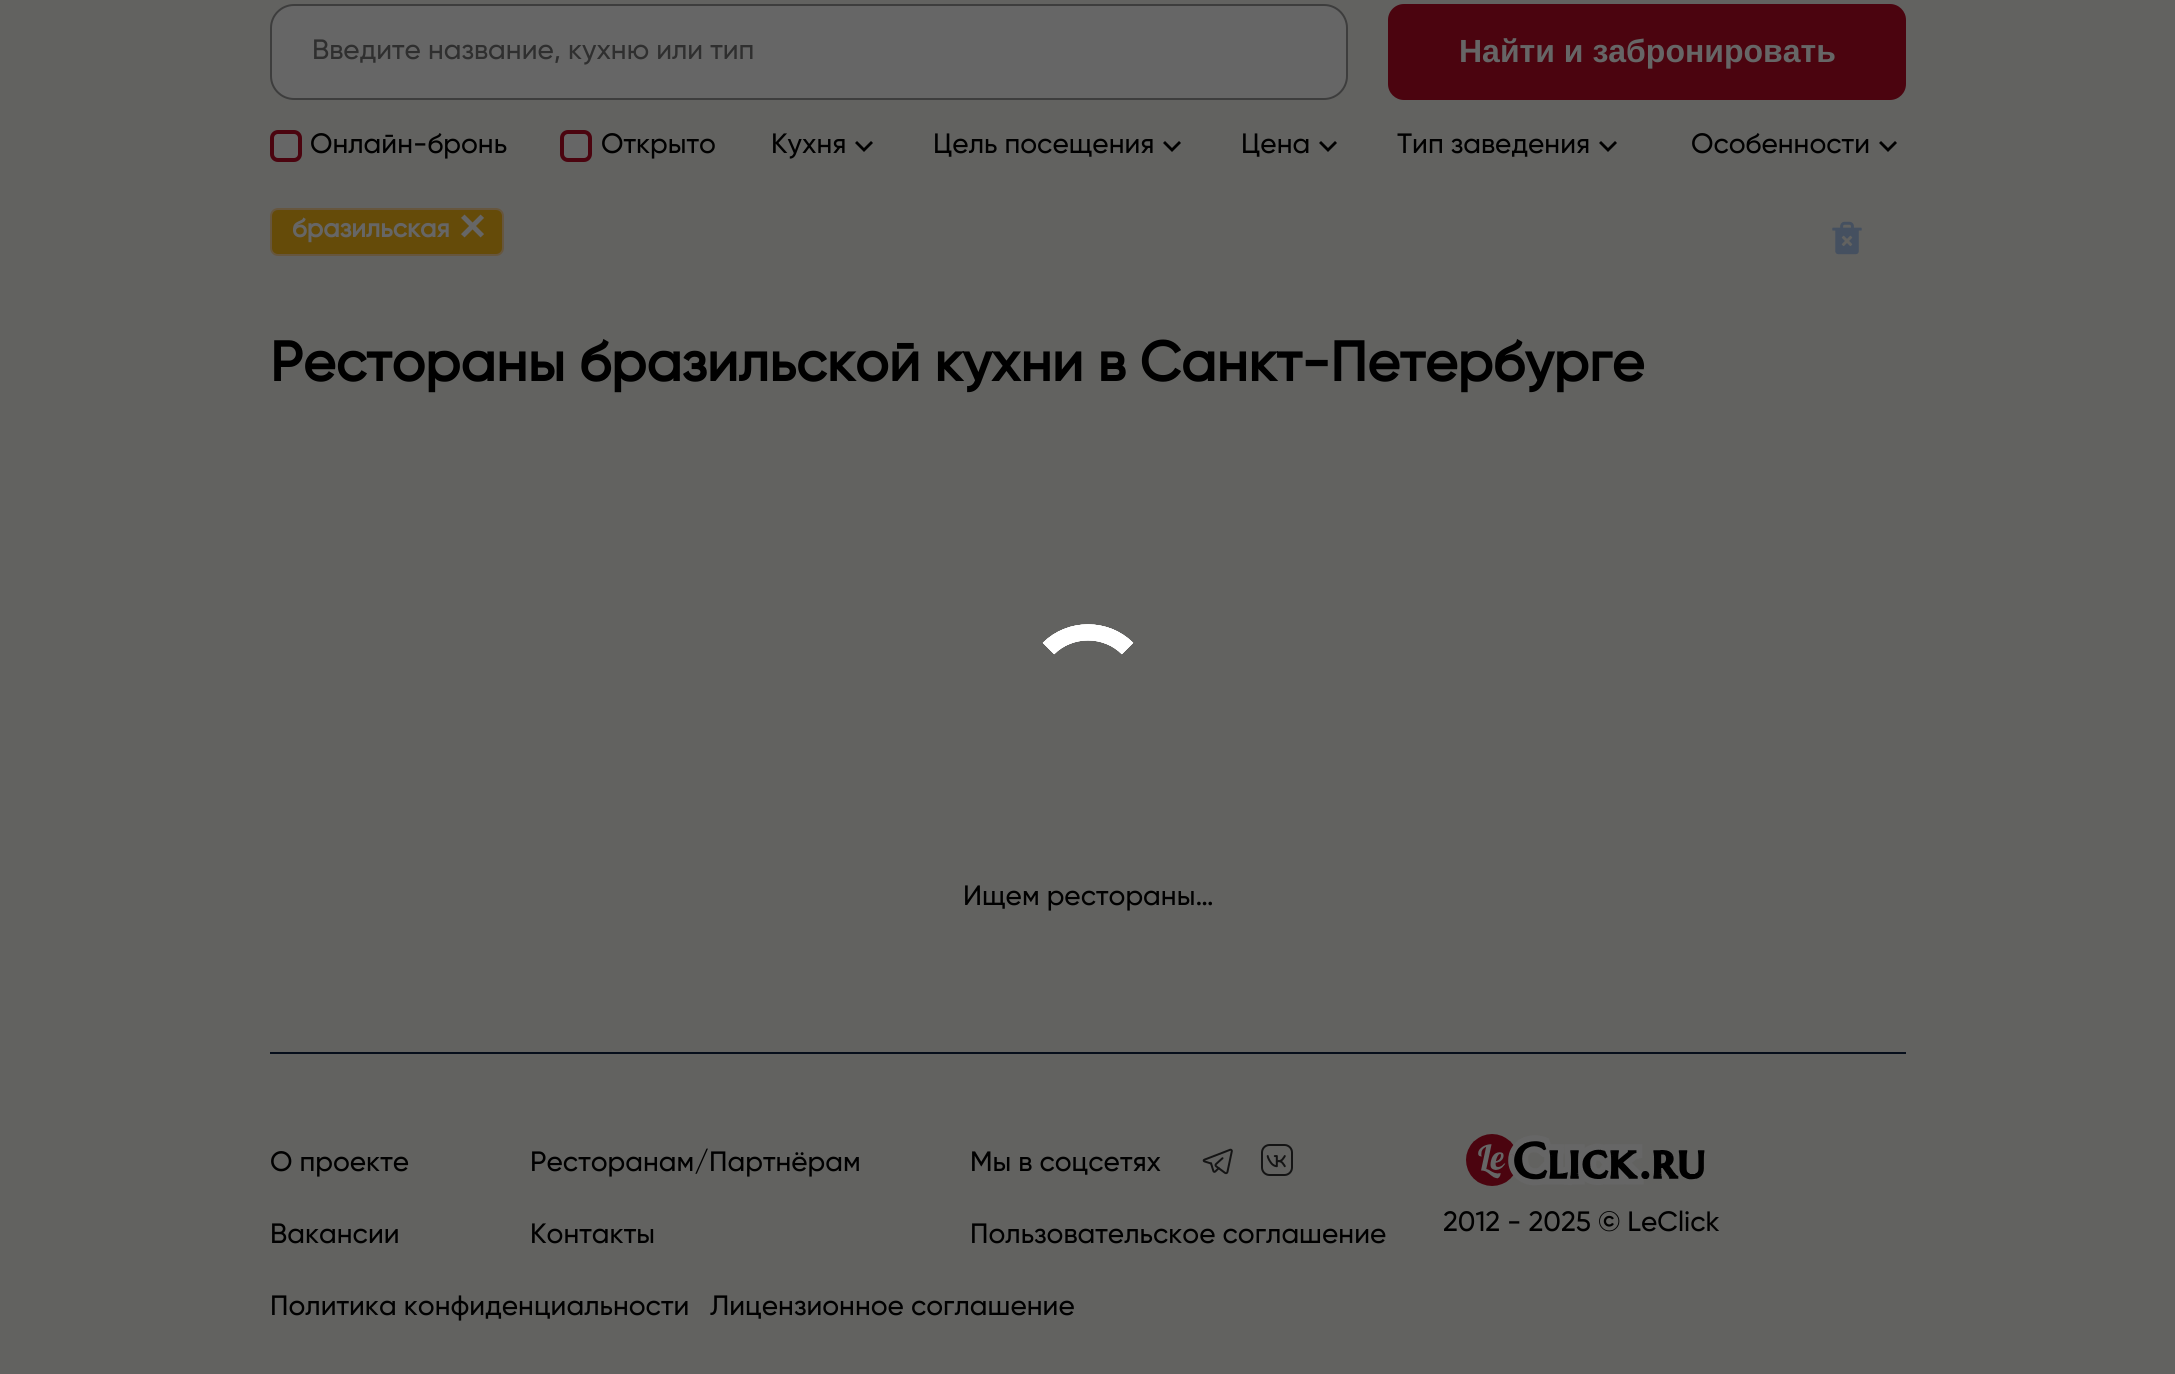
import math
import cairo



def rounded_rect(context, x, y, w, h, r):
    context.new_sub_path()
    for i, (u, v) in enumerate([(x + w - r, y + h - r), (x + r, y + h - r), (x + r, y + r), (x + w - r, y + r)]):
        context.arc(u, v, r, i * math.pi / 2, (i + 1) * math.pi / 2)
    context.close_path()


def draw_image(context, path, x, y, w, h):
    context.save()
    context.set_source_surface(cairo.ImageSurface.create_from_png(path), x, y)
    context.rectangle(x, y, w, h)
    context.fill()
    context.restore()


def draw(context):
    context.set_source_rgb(98 / 255, 98 / 255, 96 / 255)
    context.paint()
    context.set_source_rgb(102 / 255, 102 / 255, 102 / 255)
    rounded_rect(context, 271, 5, 1076, 94, 23)
    context.fill_preserve()
    context.set_source_rgb(61 / 255, 61 / 255, 61 / 255)
    context.stroke()
    context.set_source_rgb(75 / 255, 4 / 255, 15 / 255)
    rounded_rect(context, 1388, 4, 518, 96, 16)
    context.fill()
    context.set_source_rgb(102 / 255, 102 / 255, 102 / 255)
    rounded_rect(context, 272, 132, 28, 28, 6)
    context.fill_preserve()
    context.set_source_rgb(75 / 255, 4 / 255, 15 / 255)
    context.set_line_width(4)
    context.stroke()
    context.set_source_rgb(102 / 255, 102 / 255, 102 / 255)
    rounded_rect(context, 562, 132, 28, 28, 6)
    context.fill_preserve()
    context.set_source_rgb(75 / 255, 4 / 255, 15 / 255)
    context.stroke()
    context.set_source_rgb(0, 0, 0)
    context.new_path()
    context.move_to(871, 141)
    context.line_to(873, 143)
    context.line_to(864, 152)
    context.line_to(855, 143)
    context.line_to(857, 141)
    context.line_to(864, 148)
    context.close_path()
    context.fill()
    context.new_path()
    context.move_to(1179, 141)
    context.line_to(1181, 143)
    context.line_to(1172, 152)
    context.line_to(1163, 143)
    context.line_to(1165, 141)
    context.line_to(1172, 148)
    context.close_path()
    context.fill()
    context.new_path()
    context.move_to(1335, 141)
    context.line_to(1337, 143)
    context.line_to(1328, 152)
    context.line_to(1319, 143)
    context.line_to(1321, 141)
    context.line_to(1328, 148)
    context.close_path()
    context.fill()
    context.new_path()
    context.move_to(1615, 141)
    context.line_to(1617, 143)
    context.line_to(1608, 152)
    context.line_to(1599, 143)
    context.line_to(1601, 141)
    context.line_to(1608, 148)
    context.close_path()
    context.fill()
    context.new_path()
    context.move_to(1895, 141)
    context.line_to(1897, 143)
    context.line_to(1888, 152)
    context.line_to(1879, 143)
    context.line_to(1881, 141)
    context.line_to(1888, 148)
    context.close_path()
    context.fill()
    context.set_source_rgb(101 / 255, 75 / 255, 9 / 255)
    rounded_rect(context, 271, 209, 232, 46, 7)
    context.fill_preserve()
    context.set_source_rgb(102 / 255, 86 / 255, 62 / 255)
    context.set_line_width(2)
    context.stroke()
    draw_image(context, "images/1.png", 1832, 221, 30, 34)
    context.new_path()
    context.move_to(1048.5, 648.5)
    context.curve_to(1070, 627, 1106, 627, 1127.5, 648.5)
    context.set_source_rgb(1, 1, 1)
    context.set_line_width(16)
    context.stroke()
    context.new_path()
    context.move_to(1048.5, 648.5)
    context.curve_to(1070, 627, 1106, 627, 1127.5, 648.5)
    context.stroke()
    context.new_path()
    context.move_to(1048.5, 648.5)
    context.curve_to(1070, 627, 1106, 627, 1127.5, 648.5)
    context.stroke()
    context.new_path()
    context.move_to(1048.5, 648.5)
    context.curve_to(1070, 627, 1106, 627, 1127.5, 648.5)
    context.stroke()
    context.set_source_rgb(6 / 255, 14 / 255, 27 / 255)
    context.rectangle(270, 1052, 1636, 2)
    context.fill()
    draw_image(context, "images/2.png", 1202, 1148, 31, 27)
    draw_image(context, "images/3.png", 1261, 1144, 32, 32)
    draw_image(context, "images/4.png", 1466, 1134, 239, 52)
    context.select_font_face("Gilroy Medium")
    context.set_font_size(28)
    context.set_source_rgb(47 / 255, 47 / 255, 47 / 255)
    context.move_to(312, 59)
    context.show_text("Введите название, кухню или тип")
    context.select_font_face("Liberation Sans", cairo.FontSlant.NORMAL, cairo.FontWeight.BOLD)
    context.set_font_size(32)
    context.set_source_rgb(102 / 255, 102 / 255, 102 / 255)
    context.move_to(1459, 62)
    context.show_text("Найти и забронировать")
    context.select_font_face("Gilroy Medium")
    context.set_font_size(28)
    context.set_source_rgb(0, 0, 0)
    context.move_to(310, 153)
    context.show_text("Онлайн-бронь")
    context.move_to(601, 153)
    context.show_text("Открыто")
    context.move_to(771, 153)
    context.show_text("Кухня")
    context.move_to(933, 153)
    context.show_text("Цель посещения")
    context.move_to(1241, 153)
    context.show_text("Цена")
    context.move_to(1397, 153)
    context.show_text("Тип заведения")
    context.move_to(1691, 153)
    context.show_text("Особенности")
    context.select_font_face("Gilroy", cairo.FontSlant.NORMAL, cairo.FontWeight.BOLD)
    context.set_font_size(26)
    context.set_source_rgb(102 / 255, 102 / 255, 102 / 255)
    context.move_to(292, 237)
    context.show_text("бразильская")
    context.select_font_face("Gilroy Medium")
    context.set_font_size(60)
    context.move_to(458, 247)
    context.show_text("×")
    context.select_font_face("Gilroy", cairo.FontSlant.NORMAL, cairo.FontWeight.BOLD)
    context.set_font_size(56)
    context.set_source_rgb(0, 0, 0)
    context.move_to(270, 381)
    context.show_text("Рестораны бразильской кухни в Санкт-Петербурге")
    context.select_font_face("Gilroy Medium")
    context.set_font_size(28)
    context.move_to(963, 905)
    context.show_text("Ищем рестораны…")
    context.move_to(270, 1171)
    context.show_text("О проекте")
    context.move_to(530, 1171)
    context.show_text("Ресторанам/Партнёрам")
    context.move_to(970, 1171)
    context.show_text("Мы в соцсетях")
    context.move_to(270, 1243)
    context.show_text("Вакансии")
    context.move_to(530, 1243)
    context.show_text("Контакты")
    context.move_to(970, 1243)
    context.show_text("Пользовательское соглашение")
    context.move_to(270, 1315)
    context.show_text("Политика конфиденциальности")
    context.move_to(710, 1315)
    context.show_text("Лицензионное соглашение")
    context.move_to(1443, 1231)
    context.show_text("2012 - 2025 © LeClick")


surface = cairo.ImageSurface(cairo.Format.RGB24, 2175, 1374)
context = cairo.Context(surface)
options = cairo.FontOptions()
options.set_hint_metrics(cairo.HintMetrics.OFF)
options.set_hint_style(cairo.HintStyle.NONE)
context.set_font_options(options)
context.set_miter_limit(4)
draw(context)
surface.write_to_png("out.png")
